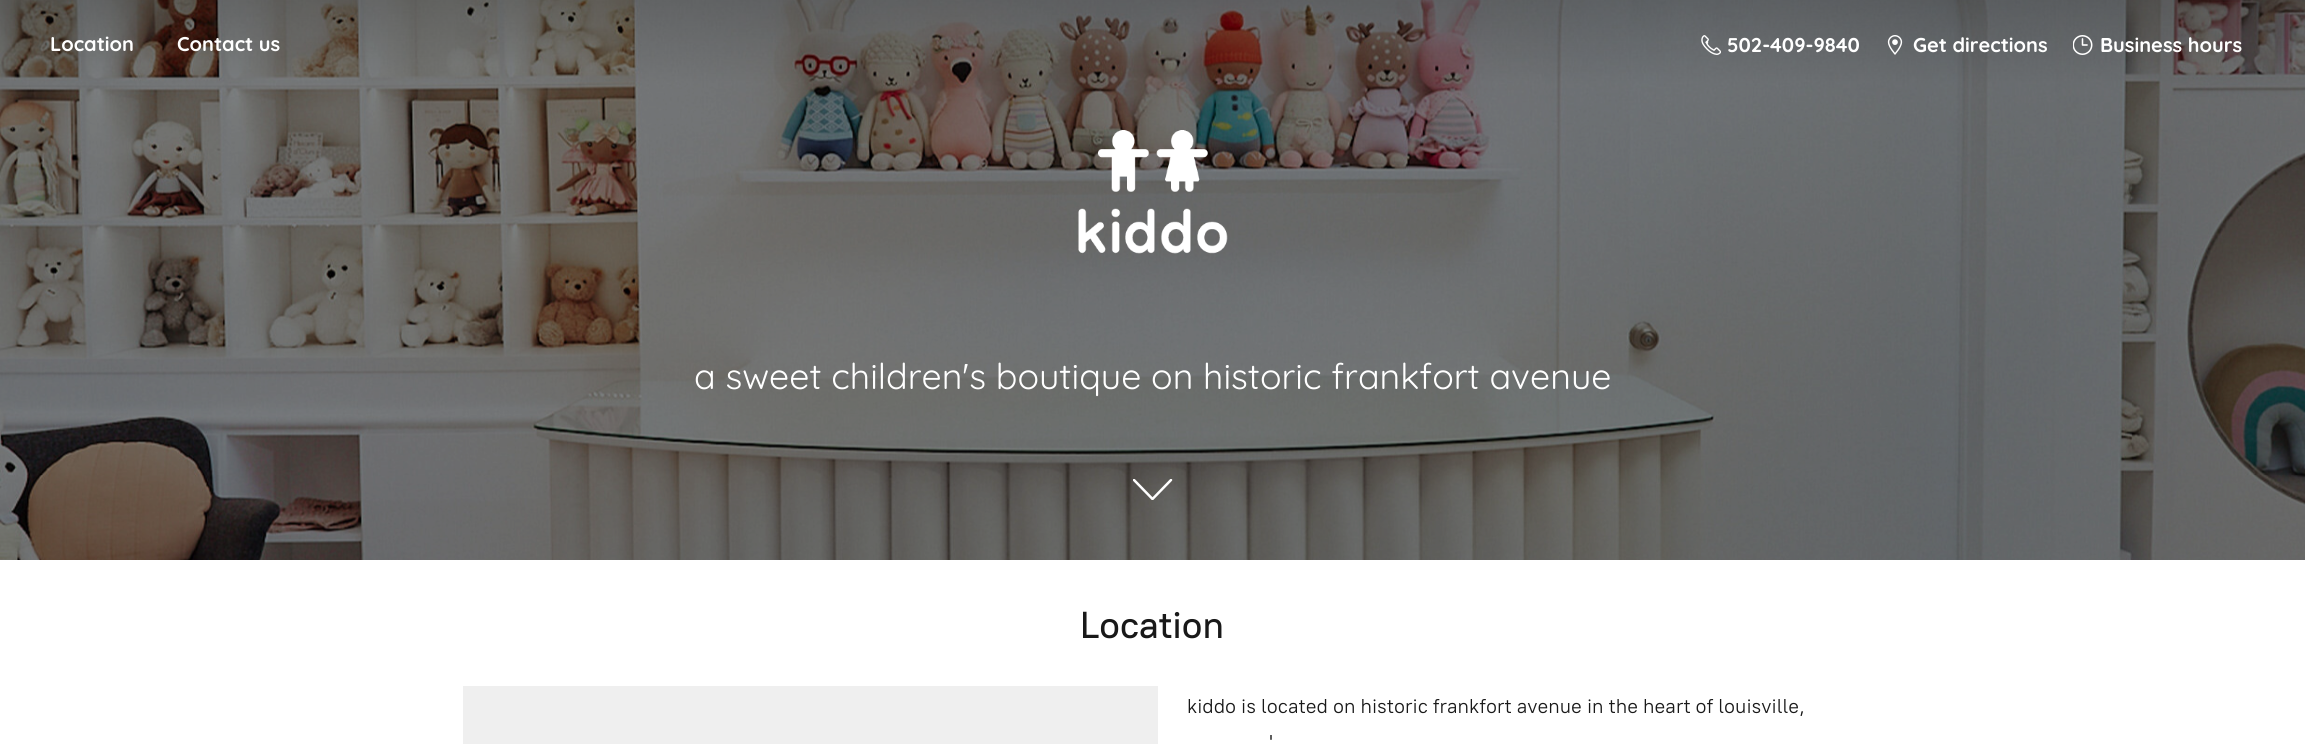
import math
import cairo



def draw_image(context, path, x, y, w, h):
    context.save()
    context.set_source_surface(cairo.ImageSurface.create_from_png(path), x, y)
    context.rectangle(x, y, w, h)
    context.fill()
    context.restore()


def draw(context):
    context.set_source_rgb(1, 1, 1)
    context.paint()
    draw_image(context, "images/1.png", 0, 0, 2305, 560)
    draw_image(context, "images/2.png", 1701, 35, 20, 20)
    draw_image(context, "images/3.png", 1887, 35, 16, 20)
    draw_image(context, "images/4.png", 2073, 35, 20, 20)
    draw_image(context, "images/5.png", 1078, 130, 150, 124)
    context.save()
    context.rectangle(1133, 479, 40, 21)
    context.clip()
    context.new_path()
    context.move_to(1171, 480)
    context.line_to(1152.5, 499)
    context.line_to(1134, 480)
    context.set_source_rgb(1, 1, 1)
    context.set_line_width(2.5)
    context.set_line_cap(cairo.LineCap.ROUND)
    context.set_line_join(cairo.LineJoin.ROUND)
    context.stroke()
    context.restore()
    context.set_source_rgb(239 / 255, 239 / 255, 239 / 255)
    context.rectangle(463, 686, 695, 58)
    context.fill()
    context.select_font_face("Quicksand", cairo.FontSlant.NORMAL, cairo.FontWeight.BOLD)
    context.set_font_size(20)
    context.set_source_rgb(1, 1, 1)
    context.move_to(50, 51)
    context.show_text("Location")
    context.move_to(177, 51)
    context.show_text("Contact us")
    context.move_to(1727, 52)
    context.show_text("502-409-9840")
    context.move_to(1913, 52)
    context.show_text("Get directions")
    context.move_to(2100, 52)
    context.show_text("Business hours")
    context.select_font_face("Quicksand")
    context.set_font_size(35.75)
    context.move_to(694, 389)
    context.show_text("a sweet children's boutique on historic frankfort avenue")
    context.select_font_face("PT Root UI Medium")
    context.set_font_size(37.5)
    context.set_source_rgb(25 / 255, 25 / 255, 25 / 255)
    context.move_to(1080, 638)
    context.show_text("Location")
    context.select_font_face("PT Root UI")
    context.set_font_size(20)
    context.move_to(1187, 713)
    context.show_text("kiddo is located on historic frankfort avenue in the heart of louisville,")
    context.move_to(1269, 749)
    context.show_text("'")


surface = cairo.ImageSurface(cairo.Format.RGB24, 2305, 744)
context = cairo.Context(surface)
options = cairo.FontOptions()
options.set_hint_metrics(cairo.HintMetrics.OFF)
options.set_hint_style(cairo.HintStyle.NONE)
context.set_font_options(options)
context.set_miter_limit(4)
draw(context)
surface.write_to_png("out.png")
